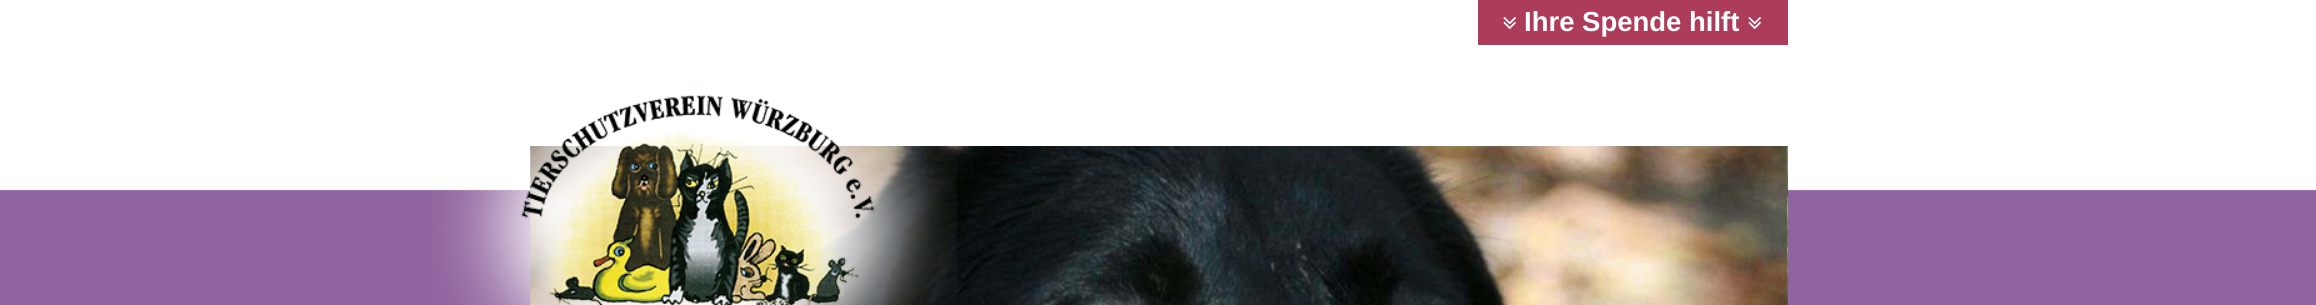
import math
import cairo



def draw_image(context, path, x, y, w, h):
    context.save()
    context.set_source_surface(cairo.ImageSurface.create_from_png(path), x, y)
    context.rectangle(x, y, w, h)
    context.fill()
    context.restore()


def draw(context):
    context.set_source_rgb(1, 1, 1)
    context.paint()
    draw_image(context, "images/1.png", 0, 189, 2316, 116)
    context.set_source_rgb(172 / 255, 60 / 255, 90 / 255)
    context.rectangle(1478, 0, 310, 45)
    context.fill()
    draw_image(context, "images/2.png", 1503, 17, 13, 12)
    draw_image(context, "images/2.png", 1748, 17, 13, 12)
    draw_image(context, "images/4.png", 530, 146, 1258, 159)
    draw_image(context, "images/3.png", 432, 94, 525, 211)
    draw_image(context, "images/5.png", 1787, 146, 1, 159)
    context.select_font_face("Liberation Sans", cairo.FontSlant.NORMAL, cairo.FontWeight.BOLD)
    context.set_font_size(27.5)
    context.set_source_rgb(1, 1, 1)
    context.move_to(1524, 31)
    context.show_text("Ihre Spende hilft")


surface = cairo.ImageSurface(cairo.Format.RGB24, 2316, 305)
context = cairo.Context(surface)
options = cairo.FontOptions()
options.set_hint_metrics(cairo.HintMetrics.OFF)
options.set_hint_style(cairo.HintStyle.NONE)
context.set_font_options(options)
context.set_miter_limit(4)
draw(context)
surface.write_to_png("out.png")
